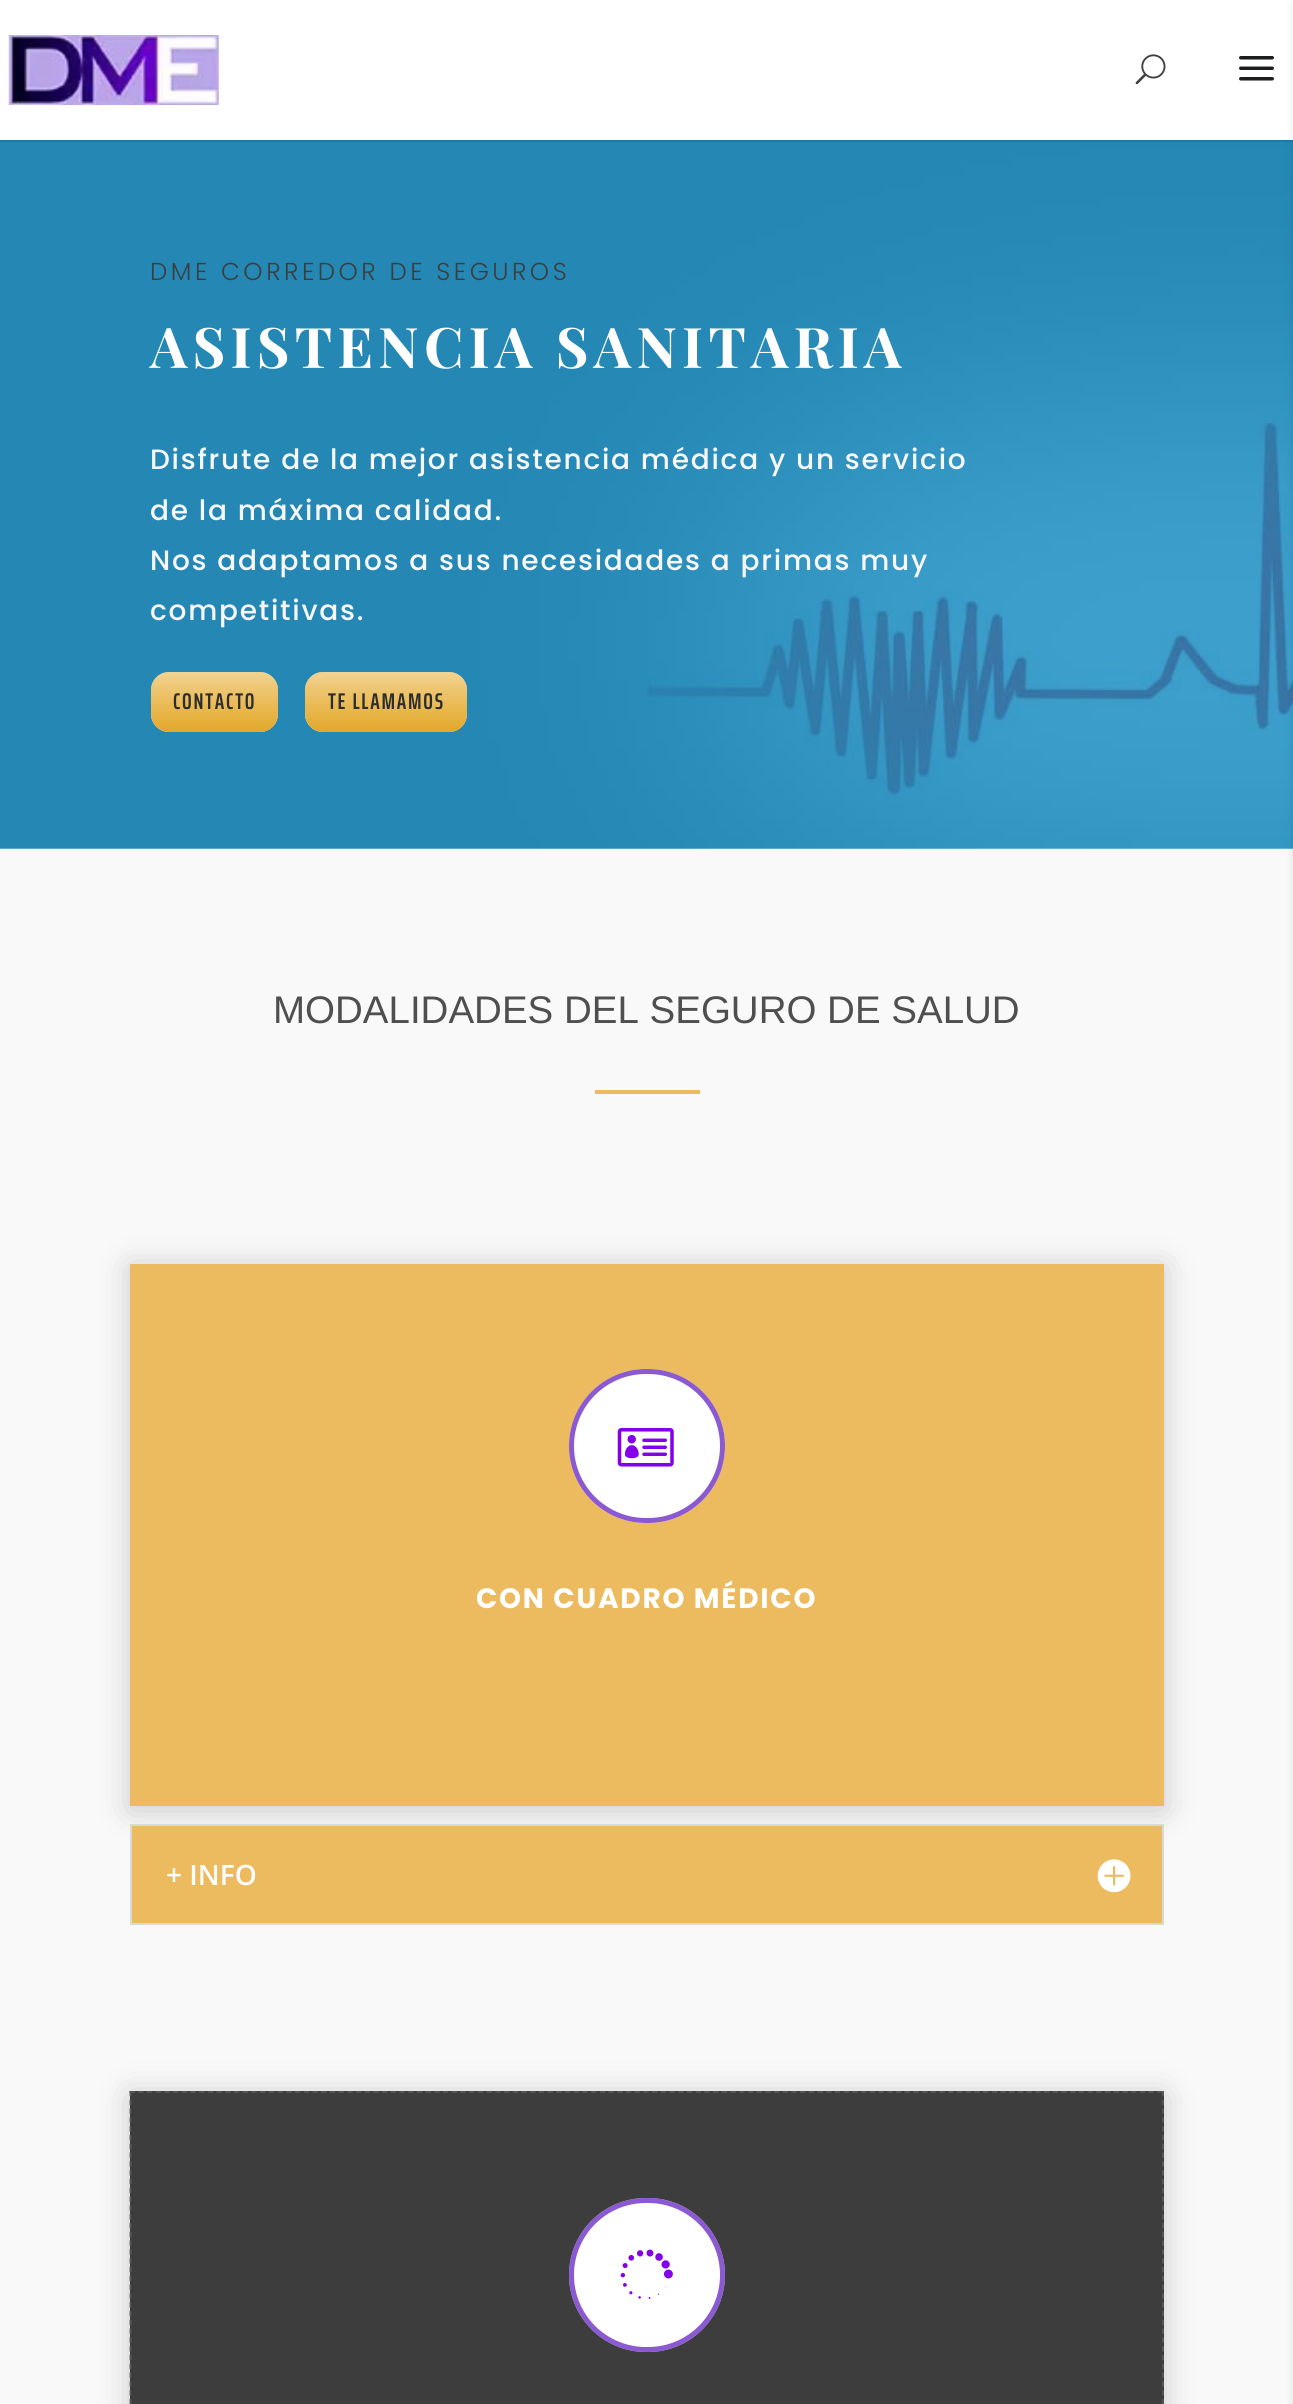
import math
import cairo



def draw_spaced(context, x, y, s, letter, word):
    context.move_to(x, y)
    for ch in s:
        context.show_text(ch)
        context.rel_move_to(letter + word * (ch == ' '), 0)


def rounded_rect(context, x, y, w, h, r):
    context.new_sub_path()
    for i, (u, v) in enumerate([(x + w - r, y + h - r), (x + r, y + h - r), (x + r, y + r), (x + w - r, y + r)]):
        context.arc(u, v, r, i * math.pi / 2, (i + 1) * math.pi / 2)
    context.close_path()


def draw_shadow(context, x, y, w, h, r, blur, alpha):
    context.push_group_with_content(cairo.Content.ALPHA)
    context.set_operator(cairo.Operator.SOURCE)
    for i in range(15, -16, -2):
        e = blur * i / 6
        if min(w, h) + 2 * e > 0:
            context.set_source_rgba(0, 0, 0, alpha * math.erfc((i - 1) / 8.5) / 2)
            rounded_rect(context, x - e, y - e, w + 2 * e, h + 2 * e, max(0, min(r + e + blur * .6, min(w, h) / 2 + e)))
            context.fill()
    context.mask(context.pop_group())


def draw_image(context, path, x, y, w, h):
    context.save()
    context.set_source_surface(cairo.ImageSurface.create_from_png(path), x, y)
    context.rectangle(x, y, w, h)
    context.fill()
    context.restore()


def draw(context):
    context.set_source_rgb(1, 1, 1)
    context.paint()
    context.set_source_rgb(33 / 255, 121 / 255, 162 / 255)
    context.rectangle(0, 140, 1293, 2)
    context.fill()
    draw_image(context, "images/1.png", 8, 35, 211, 70)
    draw_image(context, "images/2.png", 1135, 54, 31, 31)
    draw_image(context, "images/3.png", 1239, 56, 35, 25)
    draw_image(context, "images/4.png", 0, 142, 1293, 707)
    context.set_source_rgb(249 / 255, 249 / 255, 249 / 255)
    context.rectangle(0, 849, 1293, 1555)
    context.fill()
    context.set_source_rgb(0, 0, 0)
    draw_shadow(context, 1293, 4, 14, 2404, 0, 4.5, 0.1)
    context.set_source_rgb(1, 1, 1)
    rounded_rect(context, 151, 672, 127, 60, 18)
    context.fill()
    gradient = cairo.LinearGradient(214, 672, 214, 732)
    gradient.add_color_stop_rgba(0, 224 / 255, 153 / 255, 0, 0.43)
    gradient.add_color_stop_rgba(1, 224 / 255, 161 / 255, 26 / 255, 0.93)
    context.set_source(gradient)
    rounded_rect(context, 151, 672, 127, 60, 18)
    context.fill()
    context.set_source_rgb(1, 1, 1)
    rounded_rect(context, 305, 672, 162, 60, 18)
    context.fill()
    gradient = cairo.LinearGradient(386, 672, 386, 732)
    gradient.add_color_stop_rgba(0, 224 / 255, 153 / 255, 0, 0.43)
    gradient.add_color_stop_rgba(1, 224 / 255, 161 / 255, 26 / 255, 0.93)
    context.set_source(gradient)
    rounded_rect(context, 305, 672, 162, 60, 18)
    context.fill()
    context.set_source_rgb(237 / 255, 187 / 255, 95 / 255)
    context.rectangle(595, 1090, 105, 4)
    context.fill()
    context.set_source_rgb(0, 0, 0)
    draw_shadow(context, 130, 1267, 1034, 543, 0, 16, 0.2)
    context.set_source_rgb(237 / 255, 187 / 255, 95 / 255)
    context.rectangle(130, 1264, 1034, 542)
    context.fill()
    context.set_source_rgb(1, 1, 1)
    rounded_rect(context, 569, 1369, 156, 154, 77)
    context.fill()
    rounded_rect(context, 571.5, 1371.5, 151, 149, 74.5)
    context.set_source_rgba(77 / 255, 0, 186 / 255, 0.65)
    context.set_line_width(5)
    context.stroke()
    draw_image(context, "images/5.png", 617, 1428, 57, 39)
    context.set_source_rgb(237 / 255, 187 / 255, 95 / 255)
    context.rectangle(131, 1825, 1032, 99)
    context.fill_preserve()
    context.set_source_rgb(217 / 255, 217 / 255, 217 / 255)
    context.set_line_width(2)
    context.stroke()
    draw_image(context, "images/6.png", 1097, 1859, 34, 34)
    context.set_source_rgb(0, 0, 0)
    draw_shadow(context, 130, 2095, 1034, 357, 0, 16, 0.2)
    context.set_source_rgb(61 / 255, 61 / 255, 61 / 255)
    context.rectangle(130, 2091, 1034, 313)
    context.fill()
    context.new_path()
    context.move_to(129.5, 2092)
    context.line_to(1164, 2092)
    context.set_source_rgb(86 / 255, 86 / 255, 86 / 255)
    context.set_line_width(1.8)
    context.set_dash([5.25, 3.46])
    context.stroke()
    context.new_path()
    context.move_to(1163, 2091)
    context.line_to(1163, 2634)
    context.set_dash([5.25, 3.55])
    context.stroke()
    context.new_path()
    context.move_to(130.5, 2091)
    context.line_to(130.5, 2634)
    context.stroke()
    context.set_source_rgb(1, 1, 1)
    rounded_rect(context, 569, 2198, 156, 154, 77)
    context.fill()
    rounded_rect(context, 571.5, 2200.5, 151, 149, 74.5)
    context.set_source_rgba(77 / 255, 0, 186 / 255, 0.65)
    context.set_line_width(5)
    context.set_dash([])
    context.stroke()
    draw_image(context, "images/7.png", 620, 2249, 53, 50)
    context.select_font_face("Poppins Light")
    context.set_font_size(24.5)
    context.set_source_rgb(61 / 255, 61 / 255, 61 / 255)
    draw_spaced(context, 150, 280, "DME CORREDOR DE SEGUROS", 3.5, 0)
    context.select_font_face("Playfair Display", cairo.FontSlant.NORMAL, cairo.FontWeight.BOLD)
    context.set_font_size(56)
    context.set_source_rgb(1, 1, 1)
    draw_spaced(context, 150, 368, "ASISTENCIA SANITARIA", 5.25, 0)
    context.select_font_face("Poppins Medium")
    context.set_font_size(28)
    context.set_source_rgb(247 / 255, 247 / 255, 247 / 255)
    draw_spaced(context, 150, 469, "Disfrute de la mejor asistencia médica y un servicio", 1.75, 0)
    draw_spaced(context, 150, 520, "de la máxima calidad.", 1.75, 0)
    draw_spaced(context, 150, 570, "Nos adaptamos a sus necesidades a primas muy", 1.75, 0)
    draw_spaced(context, 150, 620, "competitivas.", 1.75, 0)
    context.select_font_face("Saira ExtraCondensed SemiBold")
    context.set_font_size(22.75)
    context.set_source_rgb(45 / 255, 45 / 255, 45 / 255)
    draw_spaced(context, 173, 709, "CONTACTO", 1.75, 0)
    draw_spaced(context, 328, 709, "TE LLAMAMOS", 1.75, 0)
    context.select_font_face("Liberation Sans")
    context.set_font_size(38.5)
    context.set_source_rgb(79 / 255, 79 / 255, 79 / 255)
    context.move_to(273, 1023)
    context.show_text("MODALIDADES DEL SEGURO DE SALUD")
    context.select_font_face("Poppins", cairo.FontSlant.NORMAL, cairo.FontWeight.BOLD)
    context.set_font_size(28)
    context.set_source_rgb(1, 1, 1)
    draw_spaced(context, 476, 1608, "CON CUADRO MÉDICO", 1.75, 0)
    context.select_font_face("Open Sans SemiBold")
    context.move_to(166, 1885)
    context.show_text("+ INFO")


surface = cairo.ImageSurface(cairo.Format.RGB24, 1293, 2404)
context = cairo.Context(surface)
options = cairo.FontOptions()
options.set_hint_metrics(cairo.HintMetrics.OFF)
options.set_hint_style(cairo.HintStyle.NONE)
context.set_font_options(options)
context.set_miter_limit(4)
draw(context)
surface.write_to_png("out.png")
